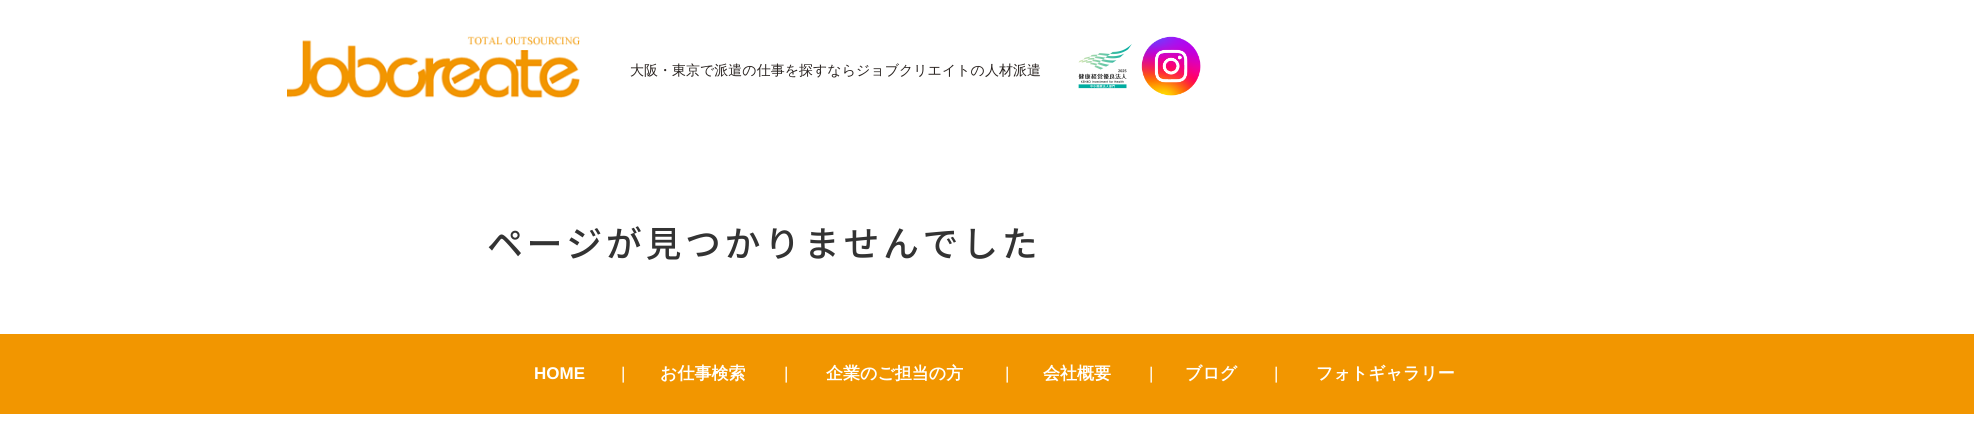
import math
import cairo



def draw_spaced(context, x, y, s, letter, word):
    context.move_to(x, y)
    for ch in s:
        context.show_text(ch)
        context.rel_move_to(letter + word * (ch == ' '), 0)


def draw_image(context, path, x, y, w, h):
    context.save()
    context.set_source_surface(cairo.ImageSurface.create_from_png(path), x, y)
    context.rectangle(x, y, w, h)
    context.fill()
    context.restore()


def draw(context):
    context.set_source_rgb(1, 1, 1)
    context.paint()
    draw_image(context, "images/1.png", 287, 36, 293, 62)
    draw_image(context, "images/2.png", 1078, 44, 54, 45)
    draw_image(context, "images/3.png", 1141, 36, 60, 60)
    context.set_source_rgb(242 / 255, 150 / 255, 0)
    context.rectangle(0, 334, 1974, 80)
    context.fill()
    context.select_font_face("WenQuanYi Zen Hei Medium")
    context.set_font_size(14)
    context.set_source_rgb(42 / 255, 36 / 255, 33 / 255)
    context.move_to(630, 75)
    context.show_text("大阪・東京で派遣の仕事を探すならジョブクリエイトの人材派遣")
    context.select_font_face("Noto Sans JP Medium")
    context.set_font_size(36)
    context.set_source_rgb(51 / 255, 51 / 255, 51 / 255)
    draw_spaced(context, 487, 257, "ページが見つかりませんでした", 3.6, 0)
    context.select_font_face("Liberation Sans", cairo.FontSlant.NORMAL, cairo.FontWeight.BOLD)
    context.set_font_size(17)
    context.set_source_rgb(1, 1, 1)
    context.move_to(534, 379)
    context.show_text("HOME")
    context.select_font_face("Liberation Sans")
    context.move_to(621, 379)
    context.show_text("|")
    context.select_font_face("WenQuanYi Zen Hei", cairo.FontSlant.NORMAL, cairo.FontWeight.BOLD)
    context.move_to(660, 379)
    context.show_text("お仕事検索")
    context.select_font_face("Liberation Sans")
    context.move_to(784, 379)
    context.show_text("|")
    context.select_font_face("WenQuanYi Zen Hei", cairo.FontSlant.NORMAL, cairo.FontWeight.BOLD)
    context.move_to(826, 379)
    context.show_text("企業のご担当の方")
    context.select_font_face("Liberation Sans")
    context.move_to(1005, 379)
    context.show_text("|")
    context.select_font_face("WenQuanYi Zen Hei", cairo.FontSlant.NORMAL, cairo.FontWeight.BOLD)
    context.move_to(1043, 379)
    context.show_text("会社概要")
    context.select_font_face("Liberation Sans")
    context.move_to(1149, 379)
    context.show_text("|")
    context.select_font_face("WenQuanYi Zen Hei", cairo.FontSlant.NORMAL, cairo.FontWeight.BOLD)
    context.move_to(1185, 379)
    context.show_text("ブログ")
    context.select_font_face("Liberation Sans")
    context.move_to(1274, 379)
    context.show_text("|")
    context.select_font_face("WenQuanYi Zen Hei", cairo.FontSlant.NORMAL, cairo.FontWeight.BOLD)
    context.move_to(1316, 379)
    context.show_text("フォトギャラリー")


surface = cairo.ImageSurface(cairo.Format.RGB24, 1974, 422)
context = cairo.Context(surface)
options = cairo.FontOptions()
options.set_hint_metrics(cairo.HintMetrics.OFF)
options.set_hint_style(cairo.HintStyle.NONE)
context.set_font_options(options)
context.set_miter_limit(4)
draw(context)
surface.write_to_png("out.png")
